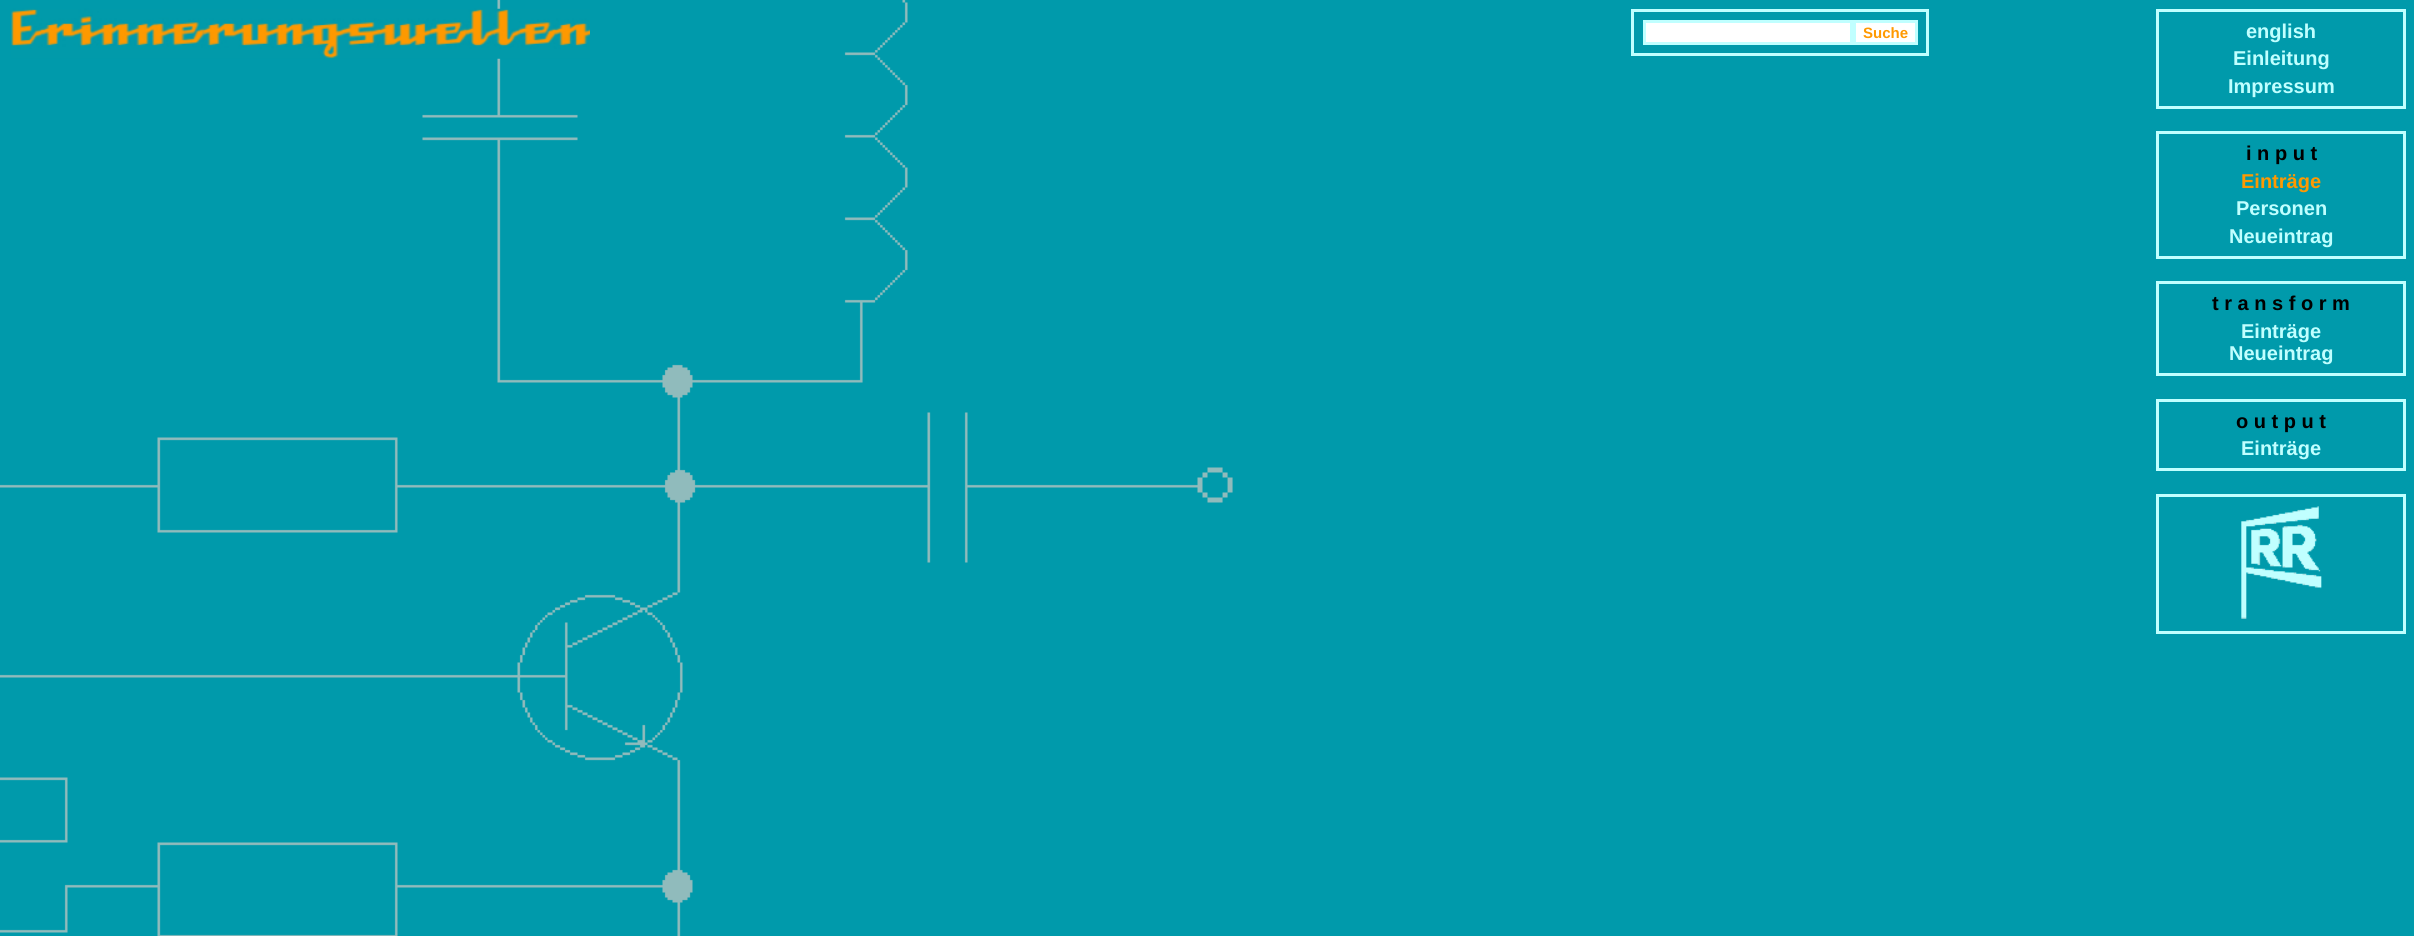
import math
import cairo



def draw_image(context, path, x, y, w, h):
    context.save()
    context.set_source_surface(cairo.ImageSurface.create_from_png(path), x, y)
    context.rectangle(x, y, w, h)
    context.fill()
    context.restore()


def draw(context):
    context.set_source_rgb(0, 154 / 255, 171 / 255)
    context.paint()
    draw_image(context, "images/1.png", 0, 0, 1233, 936)
    draw_image(context, "images/2.png", 11, 8, 579, 51)
    context.rectangle(1632.5, 10.5, 295, 44)
    context.set_source_rgb(192 / 255, 1, 1)
    context.set_line_width(3)
    context.stroke()
    context.set_source_rgb(1, 1, 1)
    context.rectangle(1644.5, 21.5, 207, 22)
    context.fill_preserve()
    context.set_source_rgb(192 / 255, 1, 1)
    context.stroke()
    context.set_source_rgb(1, 1, 1)
    context.rectangle(1854.5, 21.5, 62, 22)
    context.fill_preserve()
    context.set_source_rgb(192 / 255, 1, 1)
    context.stroke()
    context.rectangle(2157.5, 10.5, 247, 97)
    context.stroke()
    context.rectangle(2157.5, 132.5, 247, 125)
    context.stroke()
    context.rectangle(2157.5, 282.5, 247, 92)
    context.stroke()
    context.rectangle(2157.5, 400.5, 247, 69)
    context.stroke()
    context.rectangle(2157.5, 495.5, 247, 137)
    context.stroke()
    draw_image(context, "images/3.png", 2241, 506, 81, 113)
    context.select_font_face("Liberation Sans", cairo.FontSlant.NORMAL, cairo.FontWeight.BOLD)
    context.set_font_size(15)
    context.set_source_rgb(1, 153 / 255, 0)
    context.move_to(1863, 38)
    context.show_text("Suche")
    context.set_font_size(20)
    context.set_source_rgb(192 / 255, 1, 1)
    context.move_to(2246, 38)
    context.show_text("english")
    context.move_to(2233, 65)
    context.show_text("Einleitung")
    context.move_to(2228, 93)
    context.show_text("Impressum")
    context.set_source_rgb(0, 0, 0)
    context.move_to(2246, 160)
    context.show_text("i n p u t")
    context.set_source_rgb(1, 153 / 255, 0)
    context.move_to(2241, 188)
    context.show_text("Einträge")
    context.set_source_rgb(192 / 255, 1, 1)
    context.move_to(2236, 215)
    context.show_text("Personen")
    context.move_to(2229, 243)
    context.show_text("Neueintrag")
    context.set_source_rgb(0, 0, 0)
    context.move_to(2212, 310)
    context.show_text("t r a n s f o r m")
    context.set_source_rgb(192 / 255, 1, 1)
    context.move_to(2241, 338)
    context.show_text("Einträge")
    context.move_to(2229, 360)
    context.show_text("Neueintrag")
    context.set_source_rgb(0, 0, 0)
    context.move_to(2236, 428)
    context.show_text("o u t p u t")
    context.set_source_rgb(192 / 255, 1, 1)
    context.move_to(2241, 455)
    context.show_text("Einträge")


surface = cairo.ImageSurface(cairo.Format.RGB24, 2414, 936)
context = cairo.Context(surface)
options = cairo.FontOptions()
options.set_hint_metrics(cairo.HintMetrics.OFF)
options.set_hint_style(cairo.HintStyle.NONE)
context.set_font_options(options)
context.set_miter_limit(4)
draw(context)
surface.write_to_png("out.png")
